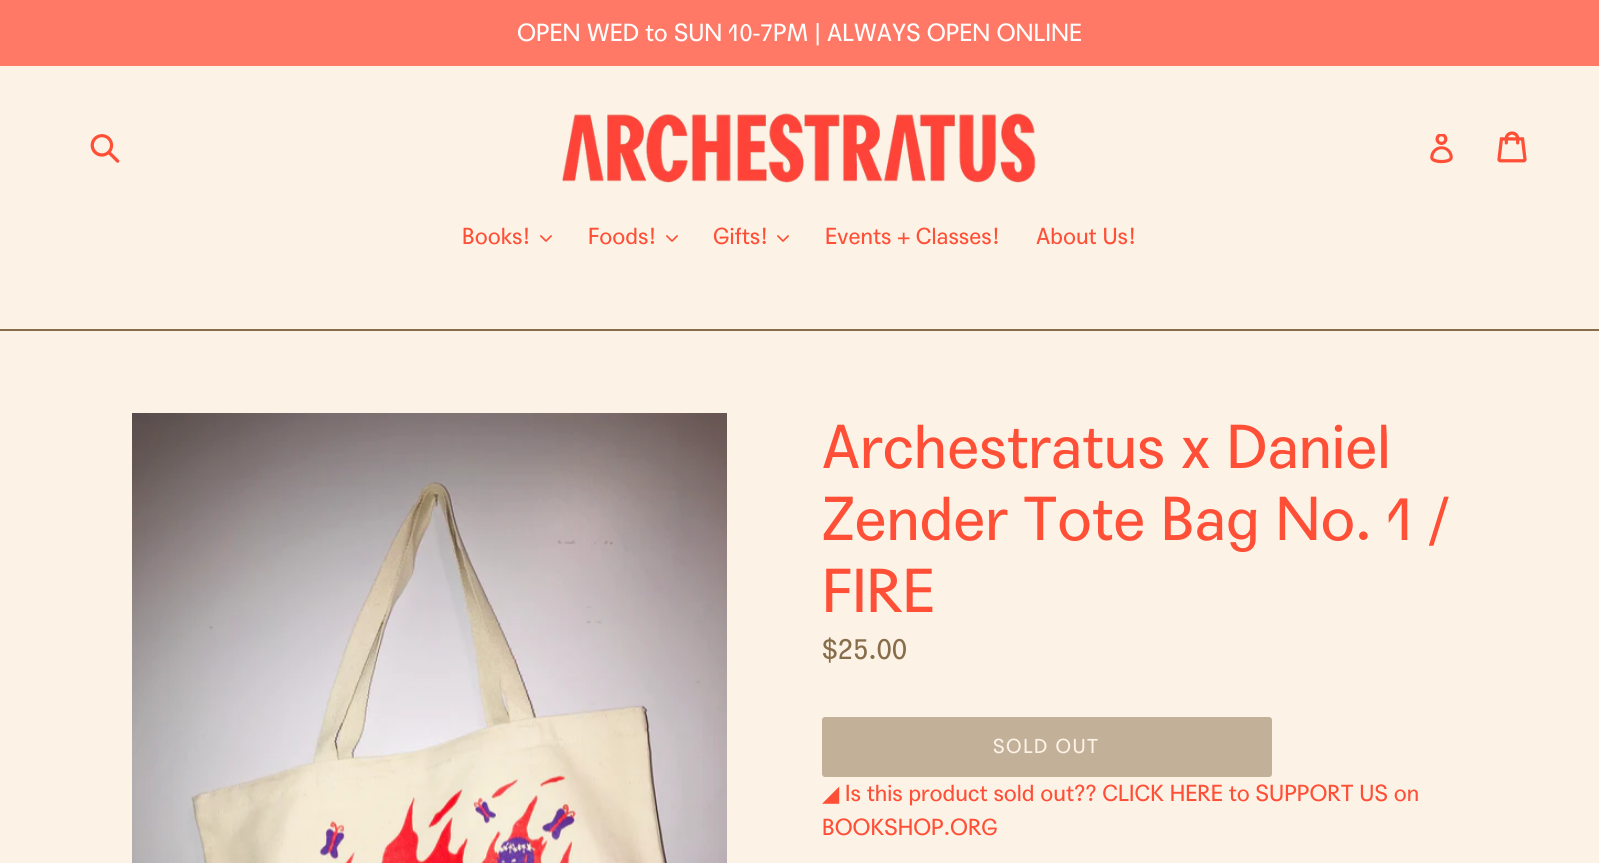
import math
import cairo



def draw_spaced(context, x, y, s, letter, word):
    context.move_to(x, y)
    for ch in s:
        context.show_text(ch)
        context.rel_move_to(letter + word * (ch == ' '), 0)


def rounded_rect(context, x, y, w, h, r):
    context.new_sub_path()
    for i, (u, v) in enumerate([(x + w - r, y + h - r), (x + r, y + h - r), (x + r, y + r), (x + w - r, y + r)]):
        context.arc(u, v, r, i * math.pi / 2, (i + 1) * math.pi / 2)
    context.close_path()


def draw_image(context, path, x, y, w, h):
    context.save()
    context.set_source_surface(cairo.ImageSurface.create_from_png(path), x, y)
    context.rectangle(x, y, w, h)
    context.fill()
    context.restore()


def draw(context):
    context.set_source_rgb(252 / 255, 243 / 255, 230 / 255)
    context.paint()
    context.set_source_rgb(1, 121 / 255, 102 / 255)
    context.rectangle(0, 0, 1599, 66)
    context.fill()
    draw_image(context, "images/1.png", 90, 134, 30, 29)
    draw_image(context, "images/2.png", 562, 113, 474, 70)
    draw_image(context, "images/3.png", 1430, 134, 23, 30)
    draw_image(context, "images/4.png", 1497, 131, 30, 32)
    context.set_source_rgb(136 / 255, 109 / 255, 75 / 255)
    context.rectangle(0, 329, 1599, 2)
    context.fill()
    draw_image(context, "images/5.png", 540, 235, 12, 7)
    draw_image(context, "images/5.png", 666, 235, 12, 7)
    draw_image(context, "images/5.png", 777, 235, 12, 7)
    draw_image(context, "images/6.png", 132, 413, 595, 450)
    context.set_source_rgb(194 / 255, 176 / 255, 153 / 255)
    rounded_rect(context, 822, 717, 450, 60, 3)
    context.fill()
    context.select_font_face("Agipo")
    context.set_font_size(24)
    context.set_source_rgb(1, 254 / 255, 254 / 255)
    context.move_to(517, 41)
    context.show_text("OPEN WED to SUN 10-7PM | ALWAYS OPEN ONLINE")
    context.set_font_size(22.5)
    context.set_source_rgb(1, 79 / 255, 55 / 255)
    context.move_to(462, 244)
    context.show_text("Books!")
    context.move_to(588, 244)
    context.show_text("Foods!")
    context.move_to(713, 244)
    context.show_text("Gifts!")
    context.move_to(825, 244)
    context.show_text("Events + Classes!")
    context.move_to(1036, 244)
    context.show_text("About Us!")
    context.set_font_size(60)
    context.move_to(822, 468)
    context.show_text("Archestratus x Daniel")
    context.move_to(822, 540)
    context.show_text("Zender Tote Bag No. 1 /")
    context.move_to(822, 612)
    context.show_text("FIRE")
    context.set_font_size(28.5)
    context.set_source_rgb(136 / 255, 109 / 255, 75 / 255)
    context.move_to(822, 659)
    context.show_text("$25.00")
    context.set_font_size(19.5)
    context.set_source_rgb(252 / 255, 243 / 255, 230 / 255)
    draw_spaced(context, 993, 753, "SOLD OUT", 1.5, 0)
    context.select_font_face("DejaVu Sans")
    context.set_font_size(22.5)
    context.set_source_rgb(1, 79 / 255, 55 / 255)
    context.move_to(822, 801)
    context.show_text("◢")
    context.select_font_face("Agipo")
    context.move_to(845, 801)
    context.show_text("Is this product sold out?? CLICK HERE to SUPPORT US on")
    context.move_to(822, 835)
    context.show_text("BOOKSHOP.ORG")


surface = cairo.ImageSurface(cairo.Format.RGB24, 1599, 863)
context = cairo.Context(surface)
options = cairo.FontOptions()
options.set_hint_metrics(cairo.HintMetrics.OFF)
options.set_hint_style(cairo.HintStyle.NONE)
context.set_font_options(options)
context.set_miter_limit(4)
draw(context)
surface.write_to_png("out.png")
